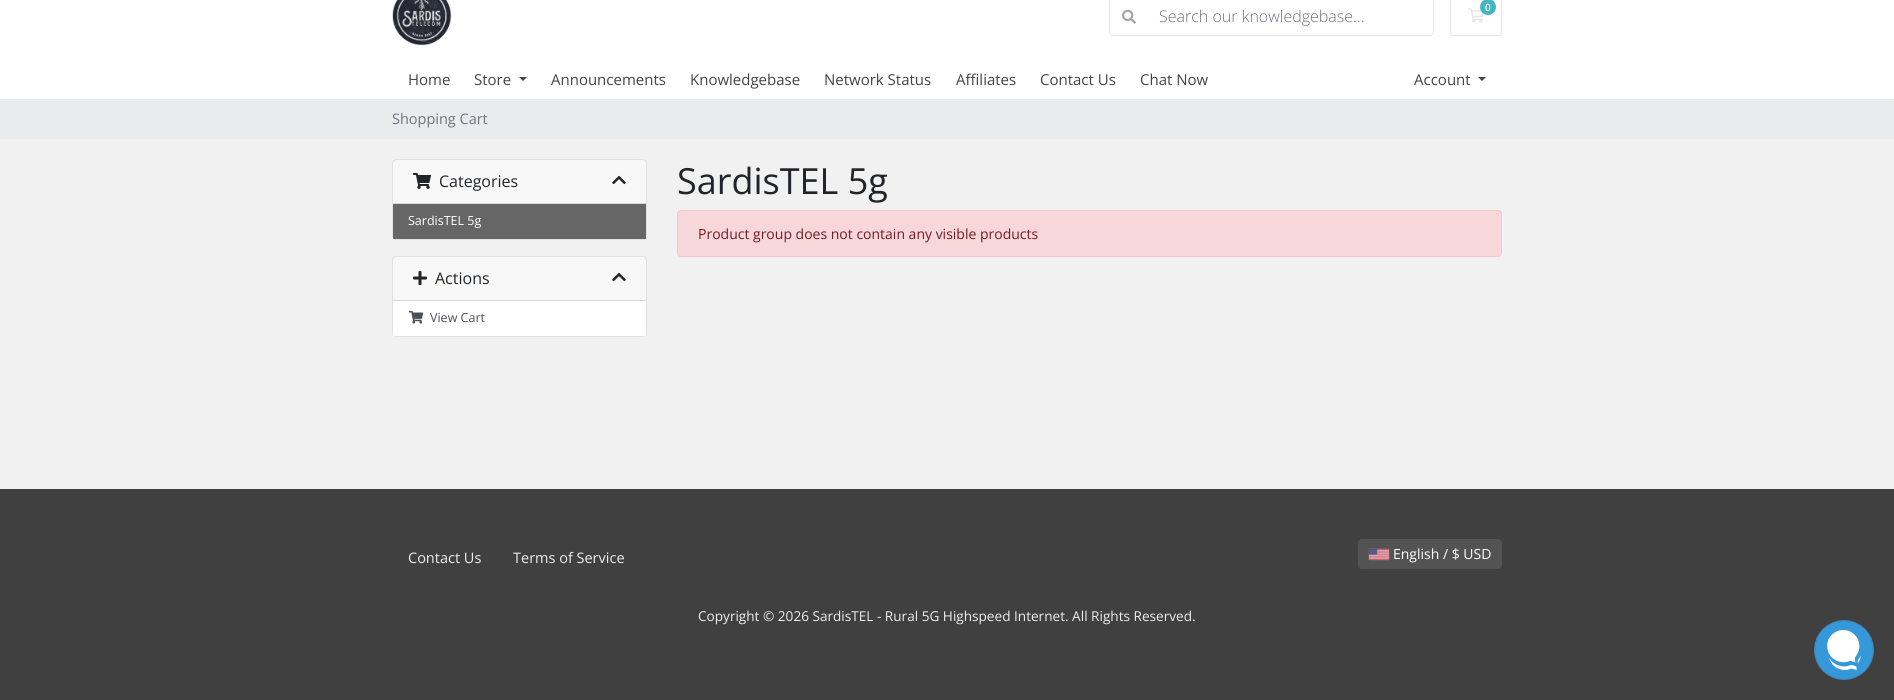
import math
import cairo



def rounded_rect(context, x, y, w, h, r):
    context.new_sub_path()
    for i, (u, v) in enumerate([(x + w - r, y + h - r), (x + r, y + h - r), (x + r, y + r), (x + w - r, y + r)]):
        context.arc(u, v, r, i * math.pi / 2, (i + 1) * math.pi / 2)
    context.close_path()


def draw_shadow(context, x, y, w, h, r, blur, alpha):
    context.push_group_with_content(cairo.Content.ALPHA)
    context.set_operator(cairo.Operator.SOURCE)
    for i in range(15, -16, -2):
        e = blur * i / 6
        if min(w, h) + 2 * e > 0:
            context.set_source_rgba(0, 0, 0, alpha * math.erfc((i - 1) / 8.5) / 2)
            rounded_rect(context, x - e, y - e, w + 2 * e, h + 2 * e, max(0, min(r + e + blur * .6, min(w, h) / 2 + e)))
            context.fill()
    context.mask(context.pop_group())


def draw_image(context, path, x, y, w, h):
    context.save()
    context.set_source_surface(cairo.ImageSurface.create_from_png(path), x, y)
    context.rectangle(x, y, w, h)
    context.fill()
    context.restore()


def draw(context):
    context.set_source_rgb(241 / 255, 241 / 255, 241 / 255)
    context.paint()
    context.set_source_rgb(1, 1, 1)
    context.rectangle(0, 0, 1894, 99)
    context.fill()
    draw_image(context, "images/1.png", 392, 0, 60, 46)
    rounded_rect(context, 1450.5, -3.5, 51, 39, 3.5)
    context.set_source_rgb(229 / 255, 229 / 255, 229 / 255)
    context.set_line_width(1)
    context.stroke()
    draw_image(context, "images/2.png", 1468, 8, 16, 15)
    context.set_source_rgba(23 / 255, 162 / 255, 184 / 255, 0.8)
    context.arc(1488, 7, 8, 0, 2 * math.pi)
    context.fill()
    rounded_rect(context, 1109.5, -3.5, 324, 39, 3.5)
    context.set_source_rgb(229 / 255, 229 / 255, 229 / 255)
    context.stroke()
    draw_image(context, "images/3.png", 1122, 9, 14, 15)
    context.set_source_rgb(68 / 255, 68 / 255, 68 / 255)
    context.new_path()
    context.move_to(519, 77)
    context.line_to(527, 77)
    context.line_to(523, 81)
    context.close_path()
    context.fill()
    context.new_path()
    context.move_to(1478, 77)
    context.line_to(1486, 77)
    context.line_to(1482, 81)
    context.close_path()
    context.fill()
    context.set_source_rgb(233 / 255, 236 / 255, 239 / 255)
    context.rectangle(0, 99, 1894, 40)
    context.fill()
    context.set_source_rgb(1, 1, 1)
    rounded_rect(context, 392, 159, 255, 81, 4)
    context.fill()
    rounded_rect(context, 392.5, 159.5, 254, 80, 3.5)
    context.set_source_rgba(0, 0, 0, 0.12)
    context.stroke()
    context.set_source_rgba(0, 0, 0, 0.03)
    context.rectangle(393, 160, 253, 43)
    context.fill()
    context.set_source_rgb(216 / 255, 216 / 255, 216 / 255)
    context.rectangle(393, 203, 253, 1)
    context.fill()
    draw_image(context, "images/4.png", 413, 173, 18, 16)
    draw_image(context, "images/5.png", 612, 175, 14, 10)
    context.set_source_rgb(102 / 255, 102 / 255, 102 / 255)
    context.rectangle(393, 204, 253, 35)
    context.fill()
    context.set_source_rgb(1, 1, 1)
    rounded_rect(context, 392, 256, 255, 81, 4)
    context.fill()
    rounded_rect(context, 392.5, 256.5, 254, 80, 3.5)
    context.set_source_rgba(0, 0, 0, 0.12)
    context.stroke()
    context.set_source_rgba(0, 0, 0, 0.03)
    context.rectangle(393, 257, 253, 43)
    context.fill()
    context.set_source_rgb(216 / 255, 216 / 255, 216 / 255)
    context.rectangle(393, 300, 253, 1)
    context.fill()
    draw_image(context, "images/6.png", 413, 271, 14, 14)
    draw_image(context, "images/5.png", 612, 272, 14, 10)
    context.set_source_rgb(1, 1, 1)
    context.rectangle(393, 333, 253, 3)
    context.fill()
    draw_image(context, "images/7.png", 409, 311, 15, 13)
    context.set_source_rgb(248 / 255, 215 / 255, 218 / 255)
    rounded_rect(context, 677.5, 210.5, 824, 46, 3.5)
    context.fill_preserve()
    context.set_source_rgb(245 / 255, 198 / 255, 203 / 255)
    context.stroke()
    context.set_source_rgb(64 / 255, 64 / 255, 64 / 255)
    context.rectangle(0, 489, 1894, 211)
    context.fill()
    context.set_source_rgb(83 / 255, 83 / 255, 83 / 255)
    rounded_rect(context, 1358, 539, 144, 30, 4)
    context.fill()
    context.set_source_rgb(136 / 255, 136 / 255, 136 / 255)
    draw_shadow(context, 1369, 549, 20, 11, 0, 0.5, 1)
    draw_image(context, "images/8.png", 1369, 549, 20, 11)
    draw_image(context, "images/9.png", 1814, 620, 60, 60)
    context.select_font_face("Open Sans SemiBold")
    context.set_font_size(10)
    context.set_source_rgb(1, 1, 1)
    context.move_to(1485, 11)
    context.show_text("0")
    context.select_font_face("Open Sans Light")
    context.set_font_size(16)
    context.set_source_rgb(108 / 255, 117 / 255, 125 / 255)
    context.move_to(1159, 22)
    context.show_text("Search our knowledgebase...")
    context.select_font_face("Open Sans")
    context.set_font_size(15)
    context.set_source_rgb(68 / 255, 68 / 255, 68 / 255)
    context.move_to(408, 85)
    context.show_text("Home")
    context.move_to(474, 85)
    context.show_text("Store")
    context.move_to(551, 85)
    context.show_text("Announcements")
    context.move_to(690, 85)
    context.show_text("Knowledgebase")
    context.move_to(824, 85)
    context.show_text("Network Status")
    context.move_to(956, 85)
    context.show_text("Affiliates")
    context.move_to(1040, 85)
    context.show_text("Contact Us")
    context.move_to(1140, 85)
    context.show_text("Chat Now")
    context.move_to(1414, 85)
    context.show_text("Account")
    context.set_font_size(14.5)
    context.set_source_rgb(108 / 255, 117 / 255, 125 / 255)
    context.move_to(392, 124)
    context.show_text("Shopping Cart")
    context.set_font_size(16)
    context.set_source_rgb(33 / 255, 37 / 255, 41 / 255)
    context.move_to(439, 187)
    context.show_text("Categories")
    context.set_font_size(12.5)
    context.set_source_rgb(1, 1, 1)
    context.move_to(408, 225)
    context.show_text("SardisTEL 5g")
    context.set_font_size(16)
    context.set_source_rgb(33 / 255, 37 / 255, 41 / 255)
    context.move_to(435, 284)
    context.show_text("Actions")
    context.set_font_size(12.5)
    context.set_source_rgb(73 / 255, 80 / 255, 87 / 255)
    context.move_to(430, 322)
    context.show_text("View Cart")
    context.set_font_size(36)
    context.set_source_rgb(33 / 255, 37 / 255, 41 / 255)
    context.move_to(677, 194)
    context.show_text("SardisTEL 5g")
    context.set_font_size(14)
    context.set_source_rgb(114 / 255, 28 / 255, 36 / 255)
    context.move_to(698, 239)
    context.show_text("Product group does not contain any visible products")
    context.set_font_size(14.5)
    context.set_source_rgb(238 / 255, 238 / 255, 238 / 255)
    context.move_to(408, 563)
    context.show_text("Contact Us")
    context.move_to(513, 563)
    context.show_text("Terms of Service")
    context.set_font_size(14)
    context.set_source_rgb(1, 1, 1)
    context.move_to(1393, 559)
    context.show_text("English / $ USD")
    context.set_font_size(13.6)
    context.set_source_rgb(238 / 255, 238 / 255, 238 / 255)
    context.move_to(698, 621)
    context.show_text("Copyright © 2026 SardisTEL - Rural 5G Highspeed Internet. All Rights Reserved.")


surface = cairo.ImageSurface(cairo.Format.RGB24, 1894, 700)
context = cairo.Context(surface)
options = cairo.FontOptions()
options.set_hint_metrics(cairo.HintMetrics.OFF)
options.set_hint_style(cairo.HintStyle.NONE)
context.set_font_options(options)
context.set_miter_limit(4)
draw(context)
surface.write_to_png("out.png")
